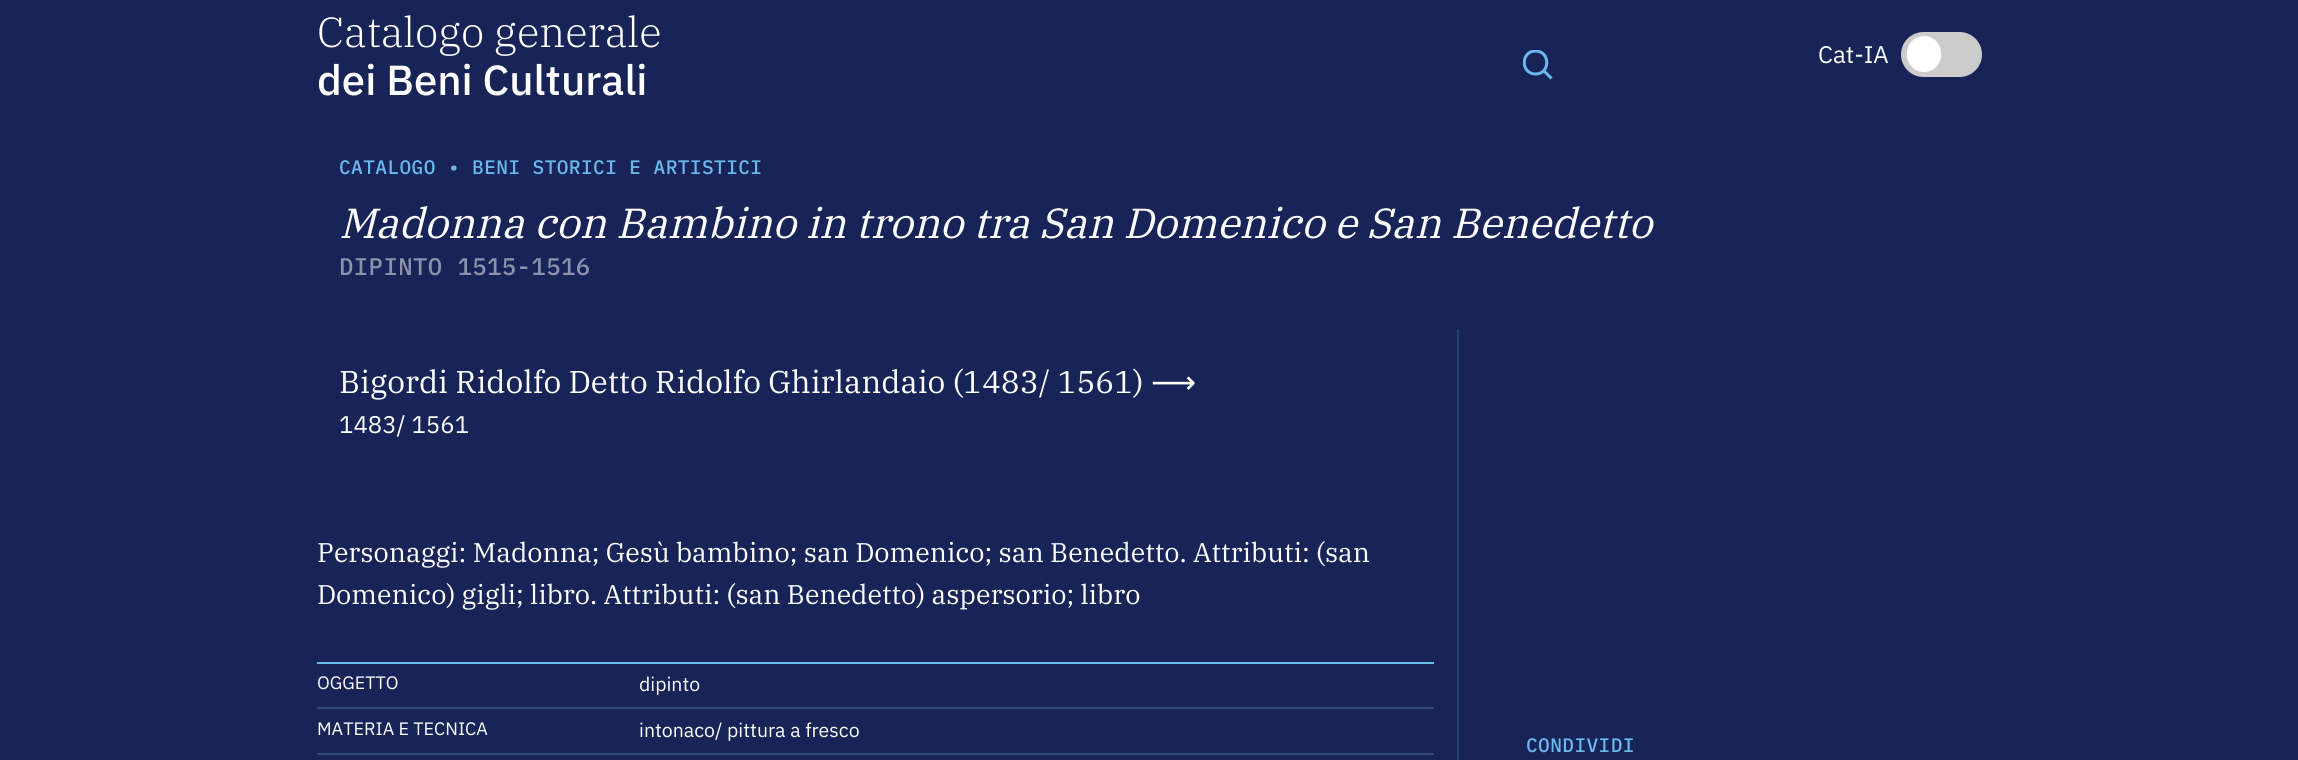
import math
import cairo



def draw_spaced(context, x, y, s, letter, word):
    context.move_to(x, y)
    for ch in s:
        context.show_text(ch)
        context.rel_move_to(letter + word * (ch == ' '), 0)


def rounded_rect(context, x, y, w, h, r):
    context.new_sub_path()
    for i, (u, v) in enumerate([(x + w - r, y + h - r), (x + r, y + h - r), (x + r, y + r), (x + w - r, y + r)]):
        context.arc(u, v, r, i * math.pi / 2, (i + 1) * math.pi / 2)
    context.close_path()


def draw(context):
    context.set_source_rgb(24 / 255, 35 / 255, 88 / 255)
    context.paint()
    context.save()
    context.rectangle(1523, 50, 30, 30)
    context.clip()
    context.new_path()
    context.move_to(1535.5, 74)
    context.curve_to(1550.5, 74, 1550.5, 51, 1535.5, 51)
    context.curve_to(1520.5, 51, 1520.5, 74, 1535.5, 74)
    context.close_path()
    context.set_source_rgb(105 / 255, 185 / 255, 236 / 255)
    context.set_line_width(3)
    context.stroke()
    context.restore()
    context.new_path()
    context.move_to(1544, 71)
    context.line_to(1551.5, 78.5)
    context.set_source_rgb(105 / 255, 185 / 255, 236 / 255)
    context.set_line_width(3)
    context.stroke()
    context.set_source_rgb(204 / 255, 204 / 255, 204 / 255)
    rounded_rect(context, 1901, 32, 81, 45, 22.5)
    context.fill()
    context.set_source_rgb(1, 1, 1)
    rounded_rect(context, 1907, 36, 34, 36, 17)
    context.fill()
    context.set_source_rgb(42 / 255, 63 / 255, 113 / 255)
    context.rectangle(1457, 329, 2, 431)
    context.fill()
    context.set_source_rgb(105 / 255, 185 / 255, 236 / 255)
    context.rectangle(317, 662, 1117, 2)
    context.fill()
    context.set_source_rgb(53 / 255, 73 / 255, 121 / 255)
    context.rectangle(317, 707, 1117, 2)
    context.fill()
    context.rectangle(317, 753, 1117, 2)
    context.fill()
    context.select_font_face("IBM Plex Serif Light")
    context.set_font_size(42)
    context.set_source_rgb(1, 1, 1)
    context.move_to(317, 47)
    context.show_text("Catalogo generale")
    context.select_font_face("IBM Plex Sans Medium")
    context.move_to(317, 95)
    context.show_text("dei Beni Culturali")
    context.select_font_face("IBM Plex Sans")
    context.set_font_size(24)
    context.move_to(1818, 63)
    context.show_text("Cat-IA")
    context.select_font_face("IBM Plex Mono Medium")
    context.set_font_size(19.5)
    context.set_source_rgb(105 / 255, 185 / 255, 236 / 255)
    draw_spaced(context, 339, 174, "CATALOGO • BENI STORICI E ARTISTICI", 0.4, 0)
    context.select_font_face("IBM Plex Serif", cairo.FontSlant.ITALIC)
    context.set_font_size(42)
    context.set_source_rgb(1, 1, 1)
    context.move_to(339, 238)
    context.show_text("Madonna con Bambino in trono tra San Domenico e San Benedetto")
    context.select_font_face("IBM Plex Mono Medium")
    context.set_font_size(24)
    context.set_source_rgb(140 / 255, 145 / 255, 172 / 255)
    draw_spaced(context, 339, 275, "DIPINTO 1515-1516", 0.4, 0)
    context.select_font_face("IBM Plex Serif")
    context.set_font_size(31.5)
    context.set_source_rgb(1, 1, 1)
    context.move_to(339, 393)
    context.show_text("Bigordi Ridolfo Detto Ridolfo Ghirlandaio (1483/ 1561)")
    context.select_font_face("DejaVu Sans")
    context.move_to(1151, 393)
    context.show_text("⟶")
    context.select_font_face("IBM Plex Sans")
    context.set_font_size(24)
    context.move_to(339, 433)
    context.show_text("1483/ 1561")
    context.select_font_face("IBM Plex Serif")
    context.set_font_size(27)
    context.move_to(317, 562)
    context.show_text("Personaggi: Madonna; Gesù bambino; san Domenico; san Benedetto. Attributi: (san")
    context.move_to(317, 604)
    context.show_text("Domenico) gigli; libro. Attributi: (san Benedetto) aspersorio; libro")
    context.select_font_face("IBM Plex Sans")
    context.set_font_size(18)
    context.move_to(317, 689)
    context.show_text("OGGETTO")
    context.set_font_size(19.5)
    context.move_to(639, 691)
    context.show_text("dipinto")
    context.set_font_size(18)
    context.move_to(317, 735)
    context.show_text("MATERIA E TECNICA")
    context.set_font_size(19.5)
    context.move_to(639, 737)
    context.show_text("intonaco/ pittura a fresco")
    context.select_font_face("IBM Plex Mono Medium")
    context.set_source_rgb(105 / 255, 185 / 255, 236 / 255)
    draw_spaced(context, 1526, 752, "CONDIVIDI", 0.4, 0)


surface = cairo.ImageSurface(cairo.Format.RGB24, 2298, 760)
context = cairo.Context(surface)
options = cairo.FontOptions()
options.set_hint_metrics(cairo.HintMetrics.OFF)
options.set_hint_style(cairo.HintStyle.NONE)
context.set_font_options(options)
context.set_miter_limit(4)
draw(context)
surface.write_to_png("out.png")
